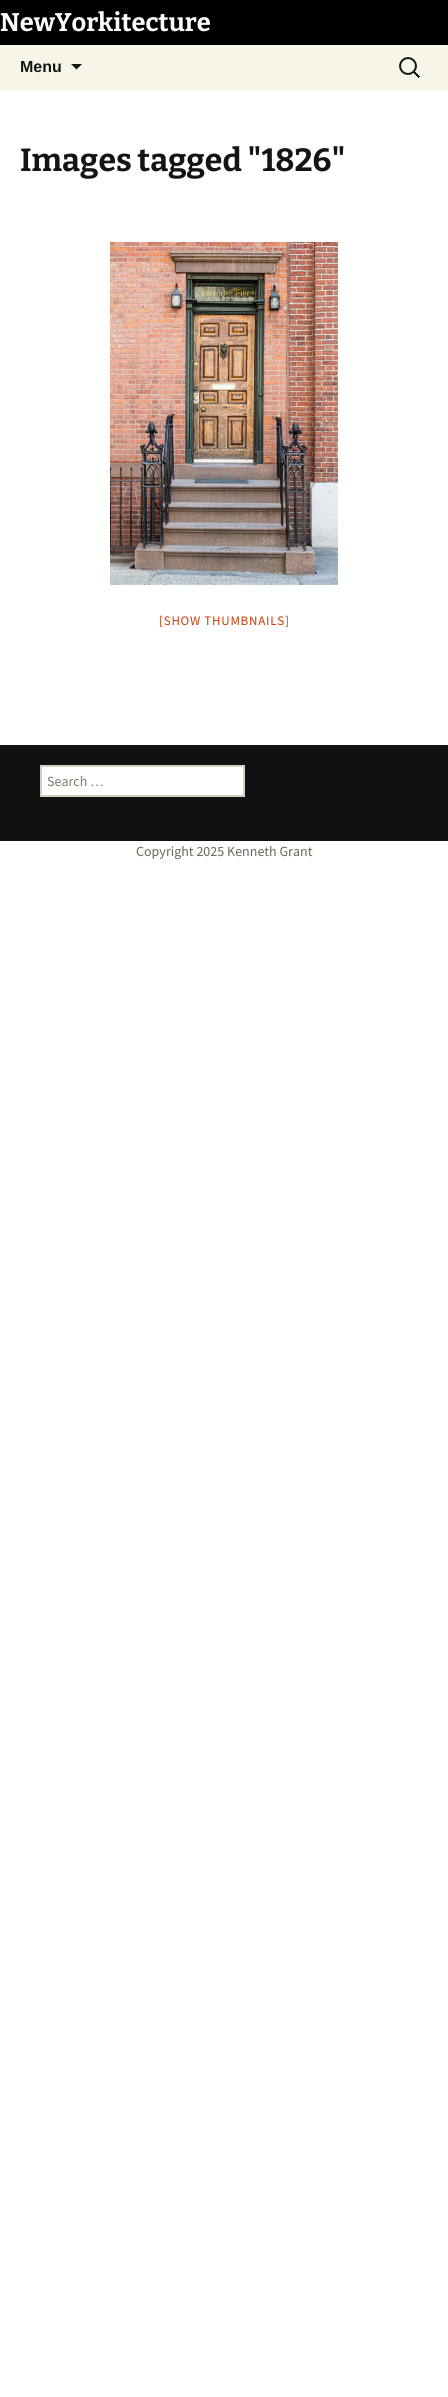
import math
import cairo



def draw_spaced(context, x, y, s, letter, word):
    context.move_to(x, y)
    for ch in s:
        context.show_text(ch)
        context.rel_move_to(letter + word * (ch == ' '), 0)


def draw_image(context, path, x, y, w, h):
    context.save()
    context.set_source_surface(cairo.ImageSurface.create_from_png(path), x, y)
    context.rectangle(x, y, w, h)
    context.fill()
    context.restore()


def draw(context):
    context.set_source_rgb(1, 1, 1)
    context.paint()
    context.set_source_rgb(0, 0, 0)
    context.rectangle(0, 0, 448, 45)
    context.fill()
    context.set_source_rgb(247 / 255, 245 / 255, 231 / 255)
    context.rectangle(0, 45, 448, 45)
    context.fill()
    context.set_source_rgb(20 / 255, 20 / 255, 18 / 255)
    context.new_path()
    context.move_to(71, 64)
    context.line_to(82, 64)
    context.line_to(76.5, 69.5)
    context.close_path()
    context.fill()
    draw_image(context, "images/1.png", 399, 57, 21, 21)
    draw_image(context, "images/2.png", 110, 242, 228, 343)
    context.set_source_rgb(17 / 255, 17 / 255, 17 / 255)
    context.rectangle(0, 745, 448, 96)
    context.fill()
    context.set_source_rgb(1, 1, 1)
    context.rectangle(41, 766, 203, 30)
    context.fill_preserve()
    context.set_source_rgb(212 / 255, 208 / 255, 186 / 255)
    context.stroke()
    context.select_font_face("Bitter Thin")
    context.set_font_size(25.5)
    context.set_source_rgb(1, 1, 1)
    context.move_to(0, 31)
    context.show_text("NewYorkitecture")
    context.select_font_face("Liberation Sans", cairo.FontSlant.NORMAL, cairo.FontWeight.BOLD)
    context.set_font_size(16)
    context.set_source_rgb(20 / 255, 20 / 255, 18 / 255)
    context.move_to(20, 72)
    context.show_text("Menu")
    context.select_font_face("Bitter Thin")
    context.set_font_size(32)
    context.move_to(20, 171)
    context.show_text("Images tagged \"1826\"")
    context.select_font_face("Source Sans Pro")
    context.set_font_size(13)
    context.set_source_rgb(202 / 255, 60 / 255, 8 / 255)
    draw_spaced(context, 159, 625, "[SHOW THUMBNAILS]", 0.75, 0)
    context.set_font_size(14)
    context.set_source_rgb(125 / 255, 123 / 255, 109 / 255)
    context.move_to(47, 786)
    context.show_text("Search …")
    context.set_source_rgb(104 / 255, 103 / 255, 88 / 255)
    context.move_to(136, 856)
    context.show_text("Copyright 2025 Kenneth Grant")


surface = cairo.ImageSurface(cairo.Format.RGB24, 448, 2397)
context = cairo.Context(surface)
options = cairo.FontOptions()
options.set_hint_metrics(cairo.HintMetrics.OFF)
options.set_hint_style(cairo.HintStyle.NONE)
context.set_font_options(options)
context.set_miter_limit(4)
draw(context)
surface.write_to_png("out.png")
